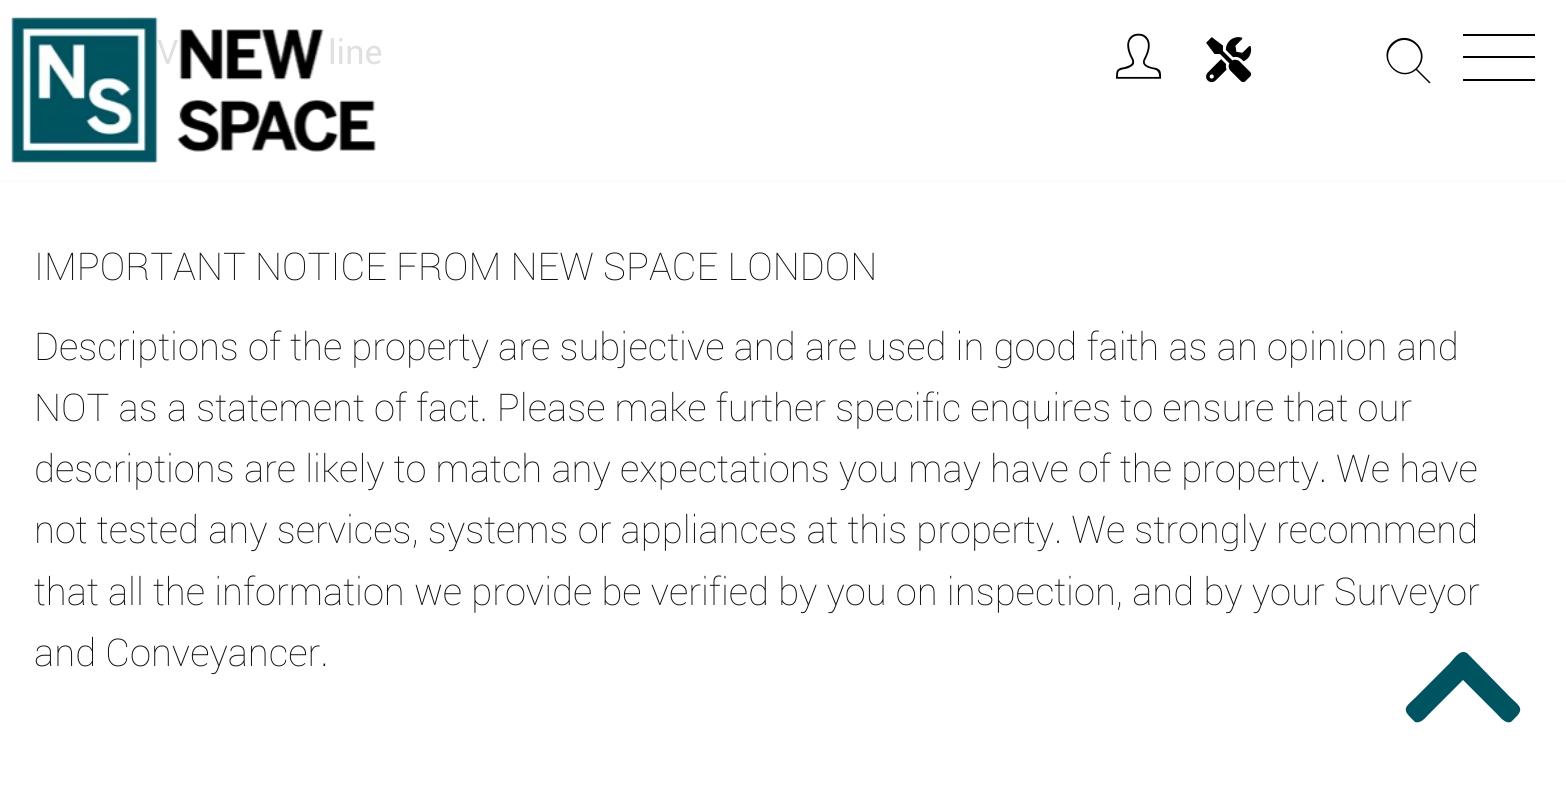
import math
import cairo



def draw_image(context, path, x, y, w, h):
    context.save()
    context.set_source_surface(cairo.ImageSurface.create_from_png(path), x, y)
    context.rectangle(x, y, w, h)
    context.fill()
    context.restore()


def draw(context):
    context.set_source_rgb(1, 1, 1)
    context.paint()
    context.set_source_rgb(251 / 255, 251 / 255, 251 / 255)
    context.rectangle(0, 180, 1566, 2)
    context.fill()
    draw_image(context, "images/2.png", 1116, 33, 45, 46)
    draw_image(context, "images/3.png", 1206, 37, 46, 46)
    context.set_source_rgb(0, 0, 0)
    context.new_path()
    context.move_to(1430, 82)
    context.line_to(1417, 69)
    context.curve_to(1433, 53, 1411, 28, 1393, 42)
    context.curve_to(1375, 57, 1398, 85, 1416, 70)
    context.line_to(1429, 83)
    context.curve_to(1430, 84, 1431, 82, 1430, 82)
    context.close_path()
    context.move_to(1416, 68)
    context.curve_to(1401, 83, 1378, 60, 1393, 45)
    context.curve_to(1408, 30, 1431, 52, 1416, 68)
    context.close_path()
    context.fill()
    context.rectangle(1463, 34, 72, 2)
    context.fill()
    context.rectangle(1463, 56, 72, 2)
    context.fill()
    context.rectangle(1463, 79, 72, 2)
    context.fill()
    context.set_source_rgb(0, 84 / 255, 97 / 255)
    context.new_path()
    context.move_to(1468, 654)
    context.line_to(1510, 697)
    context.curve_to(1518, 705, 1525, 708, 1516, 717)
    context.line_to(1511, 722)
    context.curve_to(1505, 724, 1500, 717, 1497, 714)
    context.line_to(1463, 680)
    context.line_to(1429, 714)
    context.curve_to(1426, 717, 1421, 724, 1415, 722)
    context.line_to(1410, 717)
    context.curve_to(1401, 708, 1408, 705, 1416, 697)
    context.line_to(1450, 663)
    context.curve_to(1453, 660, 1461, 647, 1468, 654)
    context.close_path()
    context.fill()
    context.select_font_face("Roboto")
    context.set_font_size(34)
    context.set_source_rgb(224 / 255, 224 / 255, 224 / 255)
    context.move_to(157, 64)
    context.show_text("V")
    context.move_to(328, 64)
    context.show_text("line")
    draw_image(context, "images/1.png", 11, 17, 365, 146)
    context.select_font_face("Roboto Thin")
    context.set_font_size(38.25)
    context.set_source_rgb(17 / 255, 17 / 255, 17 / 255)
    context.move_to(34, 280)
    context.show_text("IMPORTANT NOTICE FROM NEW SPACE LONDON")
    context.move_to(34, 360)
    context.show_text("Descriptions of the property are subjective and are used in good faith as an opinion and")
    context.move_to(34, 421)
    context.show_text("NOT as a statement of fact. Please make further specific enquires to ensure that our")
    context.move_to(34, 482)
    context.show_text("descriptions are likely to match any expectations you may have of the property. We have")
    context.move_to(34, 543)
    context.show_text("not tested any services, systems or appliances at this property. We strongly recommend")
    context.move_to(34, 605)
    context.show_text("that all the information we provide be verified by you on inspection, and by your Surveyor")
    context.move_to(34, 666)
    context.show_text("and Conveyancer.")


surface = cairo.ImageSurface(cairo.Format.RGB24, 1566, 800)
context = cairo.Context(surface)
options = cairo.FontOptions()
options.set_hint_metrics(cairo.HintMetrics.OFF)
options.set_hint_style(cairo.HintStyle.NONE)
context.set_font_options(options)
context.set_miter_limit(4)
draw(context)
surface.write_to_png("out.png")
